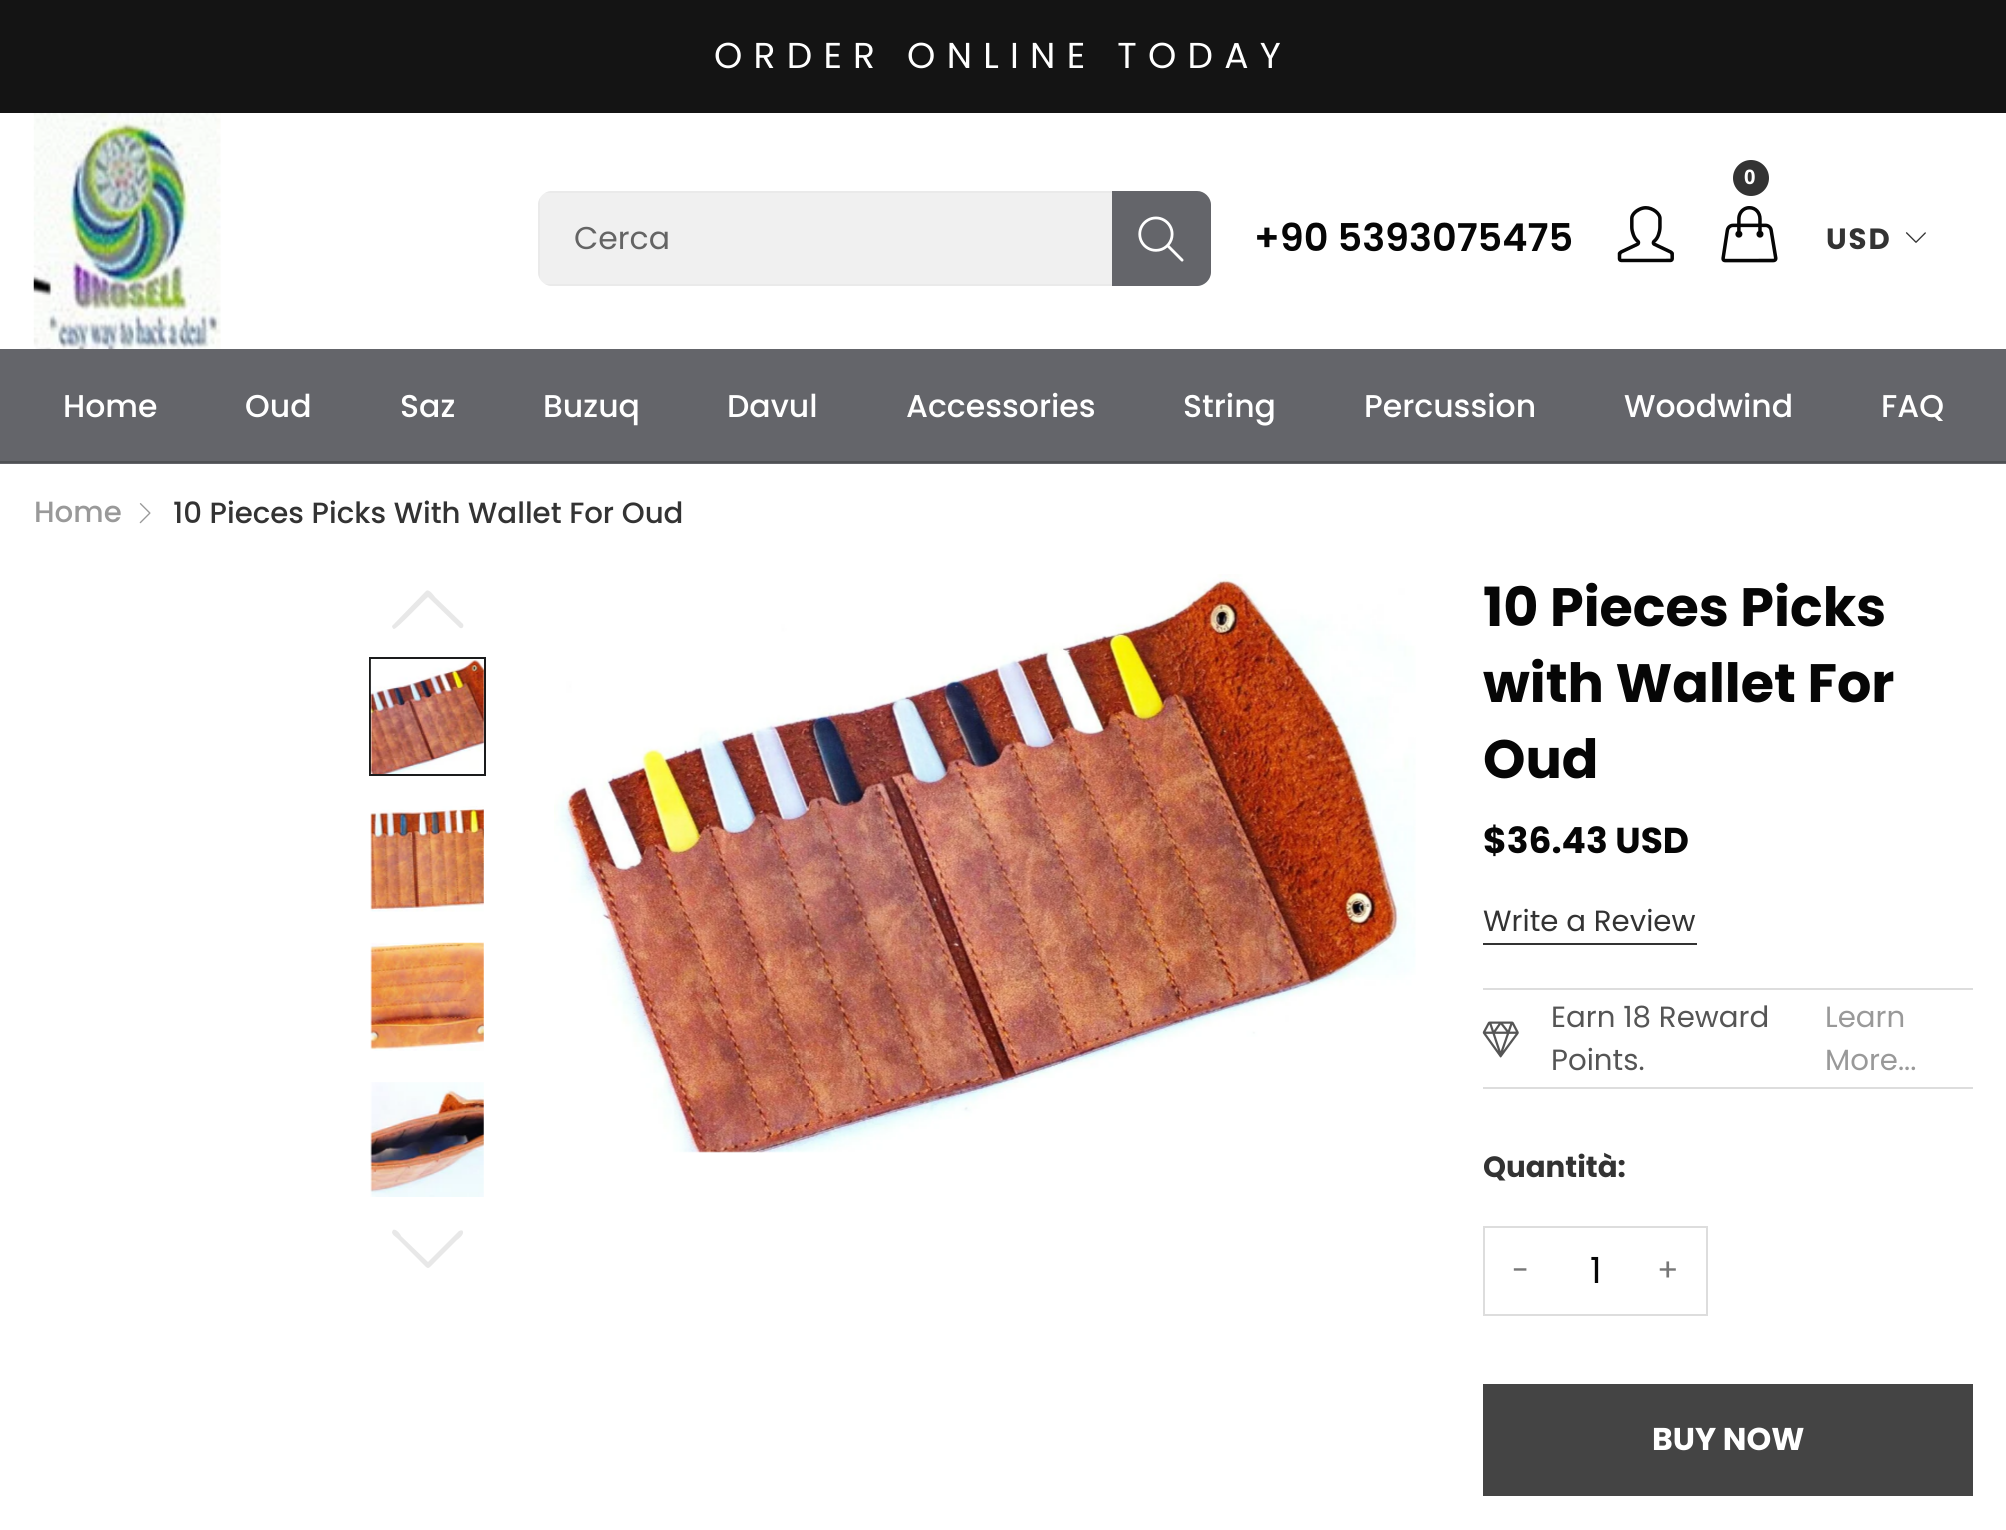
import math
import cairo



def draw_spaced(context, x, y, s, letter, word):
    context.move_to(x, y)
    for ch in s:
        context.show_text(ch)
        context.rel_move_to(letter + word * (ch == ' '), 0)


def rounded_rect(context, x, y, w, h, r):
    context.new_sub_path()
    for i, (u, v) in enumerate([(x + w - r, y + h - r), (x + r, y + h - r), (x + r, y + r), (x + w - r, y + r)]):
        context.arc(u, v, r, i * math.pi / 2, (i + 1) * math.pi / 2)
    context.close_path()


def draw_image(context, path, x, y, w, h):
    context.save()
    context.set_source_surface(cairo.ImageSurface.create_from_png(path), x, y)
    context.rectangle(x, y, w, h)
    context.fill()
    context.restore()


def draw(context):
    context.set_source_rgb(1, 1, 1)
    context.paint()
    context.set_source_rgb(20 / 255, 20 / 255, 20 / 255)
    context.rectangle(0, 0, 2006, 113)
    context.fill()
    draw_image(context, "images/1.png", 33, 113, 188, 236)
    context.set_source_rgb(51 / 255, 51 / 255, 51 / 255)
    context.arc(1751, 178, 18, 0, 2 * math.pi)
    context.fill()
    draw_image(context, "images/2.png", 1721, 206, 57, 57)
    context.set_source_rgb(240 / 255, 240 / 255, 240 / 255)
    rounded_rect(context, 538, 191, 673, 95, 14)
    context.fill()
    context.set_source_rgb(234 / 255, 234 / 255, 234 / 255)
    context.set_fill_rule(cairo.FillRule.EVEN_ODD)
    context.new_path()
    context.move_to(538, 205)
    context.line_to(538, 272)
    context.curve_to(538, 275, 539, 277, 540, 279)
    context.line_to(540, 198)
    context.curve_to(539, 200, 538, 202, 538, 205)
    context.close_path()
    context.move_to(552, 191)
    context.curve_to(549, 191, 547, 192, 545, 193)
    context.line_to(1204, 193)
    context.curve_to(1202, 192, 1200, 191, 1197, 191)
    context.close_path()
    context.move_to(1211, 205)
    context.curve_to(1211, 202, 1210, 200, 1209, 198)
    context.line_to(1209, 279)
    context.curve_to(1210, 277, 1211, 275, 1211, 272)
    context.close_path()
    context.move_to(1197, 286)
    context.curve_to(1200, 286, 1202, 285, 1204, 284)
    context.line_to(545, 284)
    context.curve_to(547, 285, 549, 286, 552, 286)
    context.close_path()
    context.fill()
    context.set_source_rgb(100 / 255, 101 / 255, 106 / 255)
    context.new_path()
    context.move_to(1112, 191)
    context.line_to(1197, 191)
    context.curve_to(1204.5, 191, 1211, 197.5, 1211, 205)
    context.line_to(1211, 272)
    context.curve_to(1211, 279.5, 1204.5, 286, 1197, 286)
    context.line_to(1112, 286)
    context.close_path()
    context.fill()
    draw_image(context, "images/3.png", 1138, 216, 46, 46)
    draw_image(context, "images/4.png", 1617, 206, 57, 57)
    draw_image(context, "images/5.png", 1905, 232, 21, 11)
    context.rectangle(0, 349, 2006, 115)
    context.fill()
    context.set_source_rgb(79 / 255, 81 / 255, 84 / 255)
    context.rectangle(0, 461, 2006, 2)
    context.fill()
    draw_image(context, "images/6.png", 139, 503, 12, 21)
    context.set_source_rgb(232 / 255, 232 / 255, 232 / 255)
    context.set_fill_rule(cairo.FillRule.WINDING)
    context.new_path()
    context.move_to(392, 626)
    context.curve_to(392, 627, 393, 629, 394, 629)
    context.curve_to(397, 629, 424, 600, 428, 597)
    context.line_to(460, 628)
    context.curve_to(463, 629, 464, 626, 463, 624)
    context.line_to(435, 597)
    context.curve_to(435, 597, 429, 588, 426, 591)
    context.close_path()
    context.fill()
    context.rectangle(370, 658, 115, 117)
    context.set_source_rgb(26 / 255, 27 / 255, 28 / 255)
    context.stroke()
    draw_image(context, "images/7.png", 370, 659, 114, 115)
    draw_image(context, "images/8.png", 370, 806, 114, 106)
    draw_image(context, "images/9.png", 370, 942, 114, 109)
    draw_image(context, "images/10.png", 370, 1082, 114, 115)
    context.set_source_rgb(232 / 255, 232 / 255, 232 / 255)
    context.new_path()
    context.move_to(392, 1232)
    context.line_to(393, 1230)
    context.curve_to(396, 1228, 401, 1235, 401, 1236)
    context.line_to(428, 1262)
    context.line_to(459, 1231)
    context.curve_to(461, 1230, 463, 1230, 463, 1232)
    context.curve_to(464, 1235, 457, 1240, 457, 1240)
    context.line_to(435, 1262)
    context.curve_to(427, 1270, 429, 1270, 421, 1262)
    context.line_to(398, 1239)
    context.curve_to(396, 1237, 392, 1235, 392, 1232)
    context.close_path()
    context.fill()
    draw_image(context, "images/11.png", 554, 574, 862, 579)
    context.set_source_rgb(51 / 255, 51 / 255, 51 / 255)
    context.rectangle(1483, 943, 214, 2)
    context.fill()
    context.set_source_rgb(221 / 255, 221 / 255, 221 / 255)
    context.rectangle(1483, 988, 490, 2)
    context.fill()
    context.rectangle(1483, 1087, 490, 2)
    context.fill()
    draw_image(context, "images/12.png", 1482, 1021, 37, 37)
    context.rectangle(1484, 1227, 223, 88)
    context.stroke()
    context.set_source_rgb(68 / 255, 68 / 255, 68 / 255)
    context.rectangle(1483, 1384, 490, 112)
    context.fill()
    context.select_font_face("Poppins")
    context.set_font_size(36)
    context.set_source_rgb(1, 1, 1)
    draw_spaced(context, 714, 68, "ORDER ONLINE TODAY", 11.25, 0)
    context.select_font_face("Open Sans", cairo.FontSlant.NORMAL, cairo.FontWeight.BOLD)
    context.set_font_size(20)
    draw_spaced(context, 1744, 184, "0", 2, 0)
    context.select_font_face("Poppins")
    context.set_font_size(31.5)
    context.set_source_rgb(100 / 255, 100 / 255, 100 / 255)
    context.move_to(574, 249)
    context.show_text("Cerca")
    context.select_font_face("Poppins SemiBold")
    context.set_font_size(38.25)
    context.set_source_rgb(6 / 255, 6 / 255, 6 / 255)
    context.move_to(1254, 251)
    context.show_text("+90 5393075475")
    context.select_font_face("Poppins", cairo.FontSlant.NORMAL, cairo.FontWeight.BOLD)
    context.set_font_size(29.25)
    context.set_source_rgb(51 / 255, 51 / 255, 51 / 255)
    draw_spaced(context, 1826, 249, "USD", 2, 0)
    context.select_font_face("Poppins Medium")
    context.set_font_size(31.5)
    context.set_source_rgb(1, 1, 1)
    context.move_to(63, 417)
    context.show_text("Home")
    context.move_to(245, 417)
    context.show_text("Oud")
    context.move_to(400, 417)
    context.show_text("Saz")
    context.move_to(543, 417)
    context.show_text("Buzuq")
    context.move_to(727, 417)
    context.show_text("Davul")
    context.move_to(906, 417)
    context.show_text("Accessories")
    context.move_to(1183, 417)
    context.show_text("String")
    context.move_to(1364, 417)
    context.show_text("Percussion")
    context.move_to(1624, 417)
    context.show_text("Woodwind")
    context.move_to(1881, 417)
    context.show_text("FAQ")
    context.set_font_size(29.25)
    context.set_source_rgb(153 / 255, 153 / 255, 153 / 255)
    context.move_to(34, 522)
    context.show_text("Home")
    context.set_source_rgb(51 / 255, 51 / 255, 51 / 255)
    context.move_to(173, 523)
    context.show_text("10 Pieces Picks With Wallet For Oud")
    context.select_font_face("Poppins", cairo.FontSlant.NORMAL, cairo.FontWeight.BOLD)
    context.set_font_size(54)
    context.set_source_rgb(6 / 255, 6 / 255, 6 / 255)
    context.move_to(1483, 626)
    context.show_text("10 Pieces Picks")
    context.move_to(1483, 702)
    context.show_text("with Wallet For")
    context.move_to(1483, 778)
    context.show_text("Oud")
    context.set_font_size(36)
    context.move_to(1483, 853)
    context.show_text("$36.43 USD")
    context.select_font_face("Poppins")
    context.set_font_size(29.25)
    context.set_source_rgb(51 / 255, 51 / 255, 51 / 255)
    context.move_to(1483, 931)
    context.show_text("Write a Review")
    context.set_source_rgb(85 / 255, 85 / 255, 85 / 255)
    context.move_to(1551, 1027)
    context.show_text("Earn 18 Reward")
    context.move_to(1551, 1070)
    context.show_text("Points.")
    context.set_source_rgb(153 / 255, 153 / 255, 153 / 255)
    context.move_to(1825, 1027)
    context.show_text("Learn")
    context.move_to(1825, 1070)
    context.show_text("More...")
    context.select_font_face("Poppins", cairo.FontSlant.NORMAL, cairo.FontWeight.BOLD)
    context.set_source_rgb(51 / 255, 51 / 255, 51 / 255)
    context.move_to(1483, 1177)
    context.show_text("Quantità:")
    context.select_font_face("Poppins")
    context.set_font_size(31.5)
    context.set_source_rgb(119 / 255, 119 / 255, 119 / 255)
    context.move_to(1512, 1281)
    context.show_text("-")
    context.set_font_size(36)
    context.set_source_rgb(6 / 255, 6 / 255, 6 / 255)
    context.move_to(1590, 1283)
    context.show_text("1")
    context.set_font_size(31.5)
    context.set_source_rgb(119 / 255, 119 / 255, 119 / 255)
    context.move_to(1657, 1281)
    context.show_text("+")
    context.select_font_face("Poppins", cairo.FontSlant.NORMAL, cairo.FontWeight.BOLD)
    context.set_source_rgb(1, 1, 1)
    context.move_to(1652, 1450)
    context.show_text("BUY NOW")


surface = cairo.ImageSurface(cairo.Format.RGB24, 2006, 1530)
context = cairo.Context(surface)
options = cairo.FontOptions()
options.set_hint_metrics(cairo.HintMetrics.OFF)
options.set_hint_style(cairo.HintStyle.NONE)
context.set_font_options(options)
context.set_miter_limit(4)
draw(context)
surface.write_to_png("out.png")
